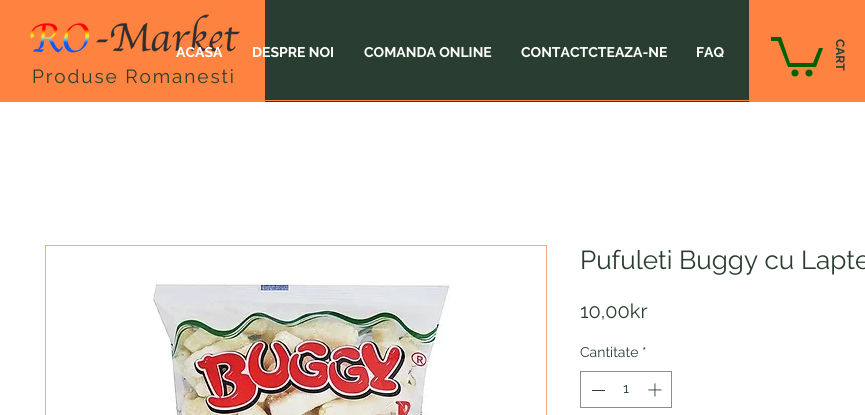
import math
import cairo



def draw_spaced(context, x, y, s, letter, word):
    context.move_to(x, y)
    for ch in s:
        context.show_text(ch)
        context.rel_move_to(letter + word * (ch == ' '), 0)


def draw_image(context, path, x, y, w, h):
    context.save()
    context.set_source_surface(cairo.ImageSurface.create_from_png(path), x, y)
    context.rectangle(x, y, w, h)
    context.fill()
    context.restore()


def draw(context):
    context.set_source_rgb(41 / 255, 62 / 255, 49 / 255)
    context.paint()
    context.set_source_rgb(254 / 255, 131 / 255, 64 / 255)
    context.rectangle(0, 0, 265, 102)
    context.fill()
    draw_image(context, "images/1.png", 30, 14, 210, 39)
    context.rectangle(265, 100, 484, 1)
    context.fill()
    context.rectangle(749, 0, 116, 102)
    context.fill()
    context.set_source_rgb(0, 96 / 255, 0)
    context.new_path()
    context.move_to(823, 48)
    context.line_to(816, 67)
    context.line_to(788, 67)
    context.line_to(778, 41)
    context.line_to(771, 41)
    context.line_to(771, 37)
    context.line_to(781, 37)
    context.line_to(790, 63)
    context.line_to(813, 63)
    context.line_to(819, 48)
    context.fill()
    context.arc(809, 73, 3.5, 0, 2 * math.pi)
    context.fill()
    context.arc(795, 73, 3.5, 0, 2 * math.pi)
    context.fill()
    context.set_source_rgb(1, 1, 1)
    context.rectangle(0, 102, 865, 313)
    context.fill()
    context.rectangle(45.5, 245.5, 501, 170)
    context.set_source_rgb(254 / 255, 168 / 255, 121 / 255)
    context.set_line_width(1)
    context.stroke()
    draw_image(context, "images/2.png", 151, 280, 299, 135)
    context.rectangle(580.5, 371.5, 91, 36)
    context.set_source_rgb(141 / 255, 141 / 255, 141 / 255)
    context.stroke()
    context.set_source_rgb(41 / 255, 62 / 255, 49 / 255)
    context.rectangle(592, 390, 13, 1)
    context.fill()
    draw_image(context, "images/3.png", 648, 383, 14, 14)
    context.select_font_face("Raleway", cairo.FontSlant.NORMAL, cairo.FontWeight.BOLD)
    context.set_font_size(14)
    context.set_source_rgb(1, 1, 1)
    context.move_to(176, 57)
    context.show_text("ACASA")
    context.move_to(252, 57)
    context.show_text("DESPRE NOI")
    context.move_to(364, 57)
    context.show_text("COMANDA ONLINE")
    context.move_to(521, 57)
    context.show_text("CONTACTCTEAZA-NE")
    context.move_to(696, 57)
    context.show_text("FAQ")
    context.select_font_face("Raleway")
    context.set_font_size(19)
    context.set_source_rgb(41 / 255, 62 / 255, 49 / 255)
    draw_spaced(context, 32, 83, "Produse Romanesti", 1.9, 0)
    context.select_font_face("Raleway", cairo.FontSlant.NORMAL, cairo.FontWeight.BOLD)
    context.set_font_size(12)
    context.save()
    context.translate(836, 39)
    context.rotate(90 * math.pi / 180)
    context.move_to(0, 0)
    context.show_text("CART")
    context.restore()
    context.select_font_face("Raleway")
    context.set_font_size(26)
    context.move_to(580, 269)
    context.show_text("Pufuleti Buggy cu Lapte")
    context.set_font_size(20)
    context.move_to(580, 318)
    context.show_text("10,00kr")
    context.set_font_size(14)
    context.move_to(580, 357)
    context.show_text("Cantitate")
    context.move_to(642, 357)
    context.show_text("*")
    context.move_to(623, 393)
    context.show_text("1")


surface = cairo.ImageSurface(cairo.Format.RGB24, 865, 415)
context = cairo.Context(surface)
options = cairo.FontOptions()
options.set_hint_metrics(cairo.HintMetrics.OFF)
options.set_hint_style(cairo.HintStyle.NONE)
context.set_font_options(options)
context.set_miter_limit(4)
draw(context)
surface.write_to_png("out.png")
